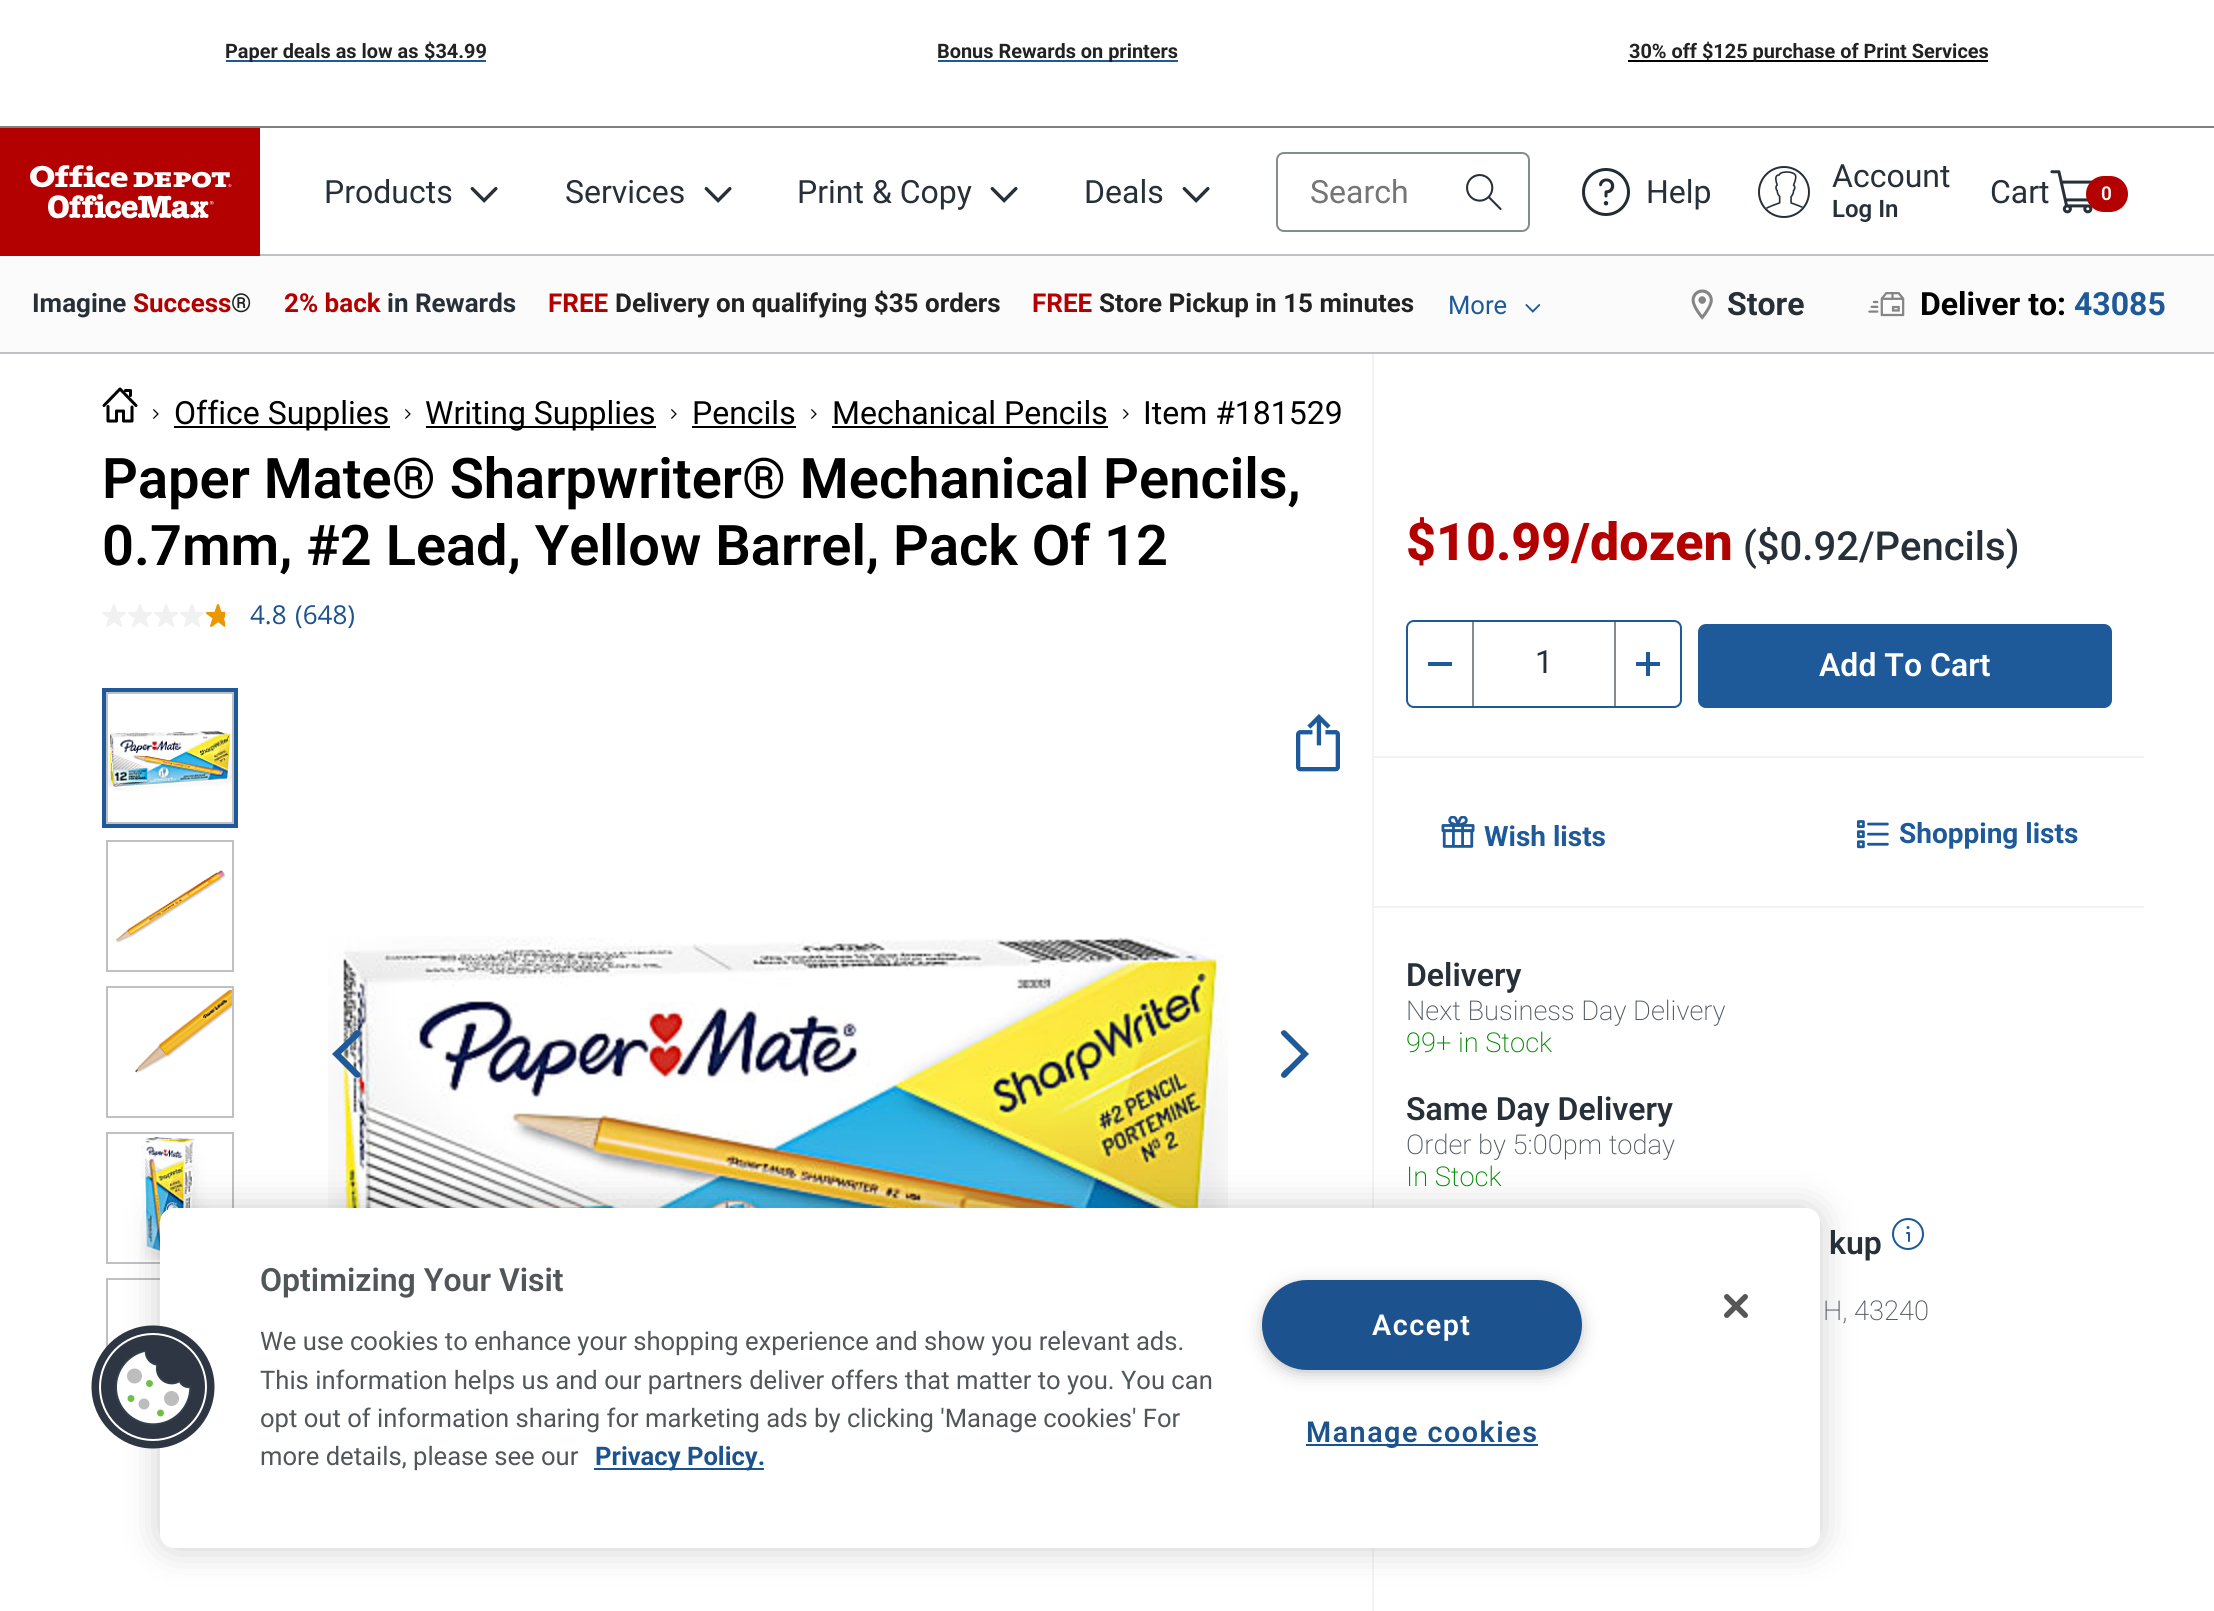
import math
import cairo



def draw_spaced(context, x, y, s, letter, word):
    context.move_to(x, y)
    for ch in s:
        context.show_text(ch)
        context.rel_move_to(letter + word * (ch == ' '), 0)


def rounded_rect(context, x, y, w, h, r):
    context.new_sub_path()
    for i, (u, v) in enumerate([(x + w - r, y + h - r), (x + r, y + h - r), (x + r, y + r), (x + w - r, y + r)]):
        context.arc(u, v, r, i * math.pi / 2, (i + 1) * math.pi / 2)
    context.close_path()


def draw_shadow(context, x, y, w, h, r, blur, alpha):
    context.push_group_with_content(cairo.Content.ALPHA)
    context.set_operator(cairo.Operator.SOURCE)
    for i in range(15, -16, -2):
        e = blur * i / 6
        if min(w, h) + 2 * e > 0:
            context.set_source_rgba(0, 0, 0, alpha * math.erfc((i - 1) / 8.5) / 2)
            rounded_rect(context, x - e, y - e, w + 2 * e, h + 2 * e, max(0, min(r + e + blur * .6, min(w, h) / 2 + e)))
            context.fill()
    context.mask(context.pop_group())


def draw_image(context, path, x, y, w, h):
    context.save()
    context.set_source_surface(cairo.ImageSurface.create_from_png(path), x, y)
    context.rectangle(x, y, w, h)
    context.fill()
    context.restore()


def draw(context):
    context.set_source_rgb(1, 1, 1)
    context.paint()
    context.set_source_rgb(128 / 255, 128 / 255, 128 / 255)
    context.rectangle(0, 126, 2214, 2)
    context.fill()
    context.set_source_rgb(30 / 255, 90 / 255, 153 / 255)
    context.rectangle(226, 60, 192, 2)
    context.fill()
    context.rectangle(938, 60, 240, 2)
    context.fill()
    context.set_source_rgb(0, 0, 0)
    context.rectangle(1628, 60, 360, 2)
    context.fill()
    context.set_source_rgb(190 / 255, 192 / 255, 195 / 255)
    context.rectangle(260, 254, 1954, 2)
    context.fill()
    context.set_source_rgb(179 / 255, 0, 0)
    context.rectangle(0, 128, 260, 128)
    context.fill()
    draw_image(context, "images/1.png", 30, 165, 202, 54)
    draw_image(context, "images/2.png", 470, 187, 28, 16)
    draw_image(context, "images/2.png", 704, 187, 28, 16)
    draw_image(context, "images/2.png", 990, 187, 28, 16)
    draw_image(context, "images/2.png", 1182, 187, 28, 16)
    rounded_rect(context, 1277, 153, 252, 78, 7)
    context.set_source_rgb(133 / 255, 140 / 255, 142 / 255)
    context.stroke()
    draw_image(context, "images/3.png", 1466, 174, 36, 36)
    draw_image(context, "images/4.png", 1582, 168, 48, 48)
    context.arc(1784, 192, 25, 0, 2 * math.pi)
    context.set_source_rgb(39 / 255, 48 / 255, 57 / 255)
    context.stroke()
    draw_image(context, "images/5.png", 1766, 171, 37, 38)
    draw_image(context, "images/6.png", 2050, 170, 43, 44)
    context.set_source_rgb(179 / 255, 0, 0)
    rounded_rect(context, 2086, 176, 42, 36, 18)
    context.fill()
    context.set_source_rgb(251 / 255, 251 / 255, 251 / 255)
    context.rectangle(0, 256, 2214, 96)
    context.fill()
    context.set_source_rgb(190 / 255, 192 / 255, 195 / 255)
    context.rectangle(0, 352, 2214, 2)
    context.fill()
    draw_image(context, "images/7.png", 1525, 304, 15, 9)
    draw_image(context, "images/8.png", 1691, 289, 22, 31)
    draw_image(context, "images/9.png", 1868, 292, 37, 25)
    context.set_source_rgb(243 / 255, 243 / 255, 243 / 255)
    context.rectangle(1372, 354, 2, 1257)
    context.fill()
    context.new_path()
    context.move_to(108, 406.5)
    context.line_to(108, 421)
    context.line_to(116.5, 421)
    context.line_to(116.5, 411)
    context.line_to(123.5, 411)
    context.line_to(123.5, 421)
    context.line_to(132, 421)
    context.line_to(132, 407)
    context.move_to(104, 405.5)
    context.line_to(120, 389)
    context.line_to(136, 405.5)
    context.move_to(125.5, 390.5)
    context.line_to(130.5, 390.5)
    context.line_to(130.5, 395.5)
    context.set_source_rgb(0, 0, 0)
    context.set_line_width(3)
    context.set_line_cap(cairo.LineCap.ROUND)
    context.set_line_join(cairo.LineJoin.ROUND)
    context.stroke()
    draw_image(context, "images/10.png", 153, 409, 6, 10)
    context.rectangle(174, 426, 216, 2)
    context.fill()
    draw_image(context, "images/10.png", 405, 409, 6, 10)
    context.rectangle(426, 426, 230, 2)
    context.fill()
    draw_image(context, "images/10.png", 671, 409, 6, 10)
    context.rectangle(692, 426, 104, 2)
    context.fill()
    draw_image(context, "images/10.png", 811, 409, 6, 10)
    context.rectangle(832, 426, 276, 2)
    context.fill()
    draw_image(context, "images/10.png", 1123, 409, 6, 10)
    draw_image(context, "images/11.png", 102, 604, 24, 23)
    draw_image(context, "images/11.png", 128, 604, 24, 23)
    draw_image(context, "images/11.png", 154, 604, 24, 23)
    draw_image(context, "images/11.png", 180, 604, 24, 23)
    draw_image(context, "images/12.png", 206, 604, 24, 23)
    context.rectangle(104, 690, 132, 136)
    context.set_source_rgb(30 / 255, 90 / 255, 153 / 255)
    context.set_line_width(4)
    context.set_line_cap(cairo.LineCap.BUTT)
    context.set_line_join(cairo.LineJoin.MITER)
    context.stroke()
    context.rectangle(107, 693, 126, 130)
    context.set_source_rgb(190 / 255, 192 / 255, 195 / 255)
    context.set_line_width(2)
    context.stroke()
    draw_image(context, "images/13.png", 108, 731, 124, 60)
    context.rectangle(107, 841, 126, 130)
    context.stroke()
    draw_image(context, "images/14.png", 116, 870, 110, 73)
    context.rectangle(107, 987, 126, 130)
    context.stroke()
    draw_image(context, "images/15.png", 134, 990, 98, 84)
    context.rectangle(107, 1133, 126, 130)
    context.stroke()
    draw_image(context, "images/16.png", 141, 1136, 79, 124)
    context.rectangle(107, 1279, 126, 130)
    context.stroke()
    draw_image(context, "images/17.png", 108, 1282, 52, 64)
    draw_image(context, "images/18.png", 1296, 714, 44, 58)
    draw_image(context, "images/19.png", 328, 936, 900, 272)
    context.set_source_rgb(30 / 255, 90 / 255, 153 / 255)
    context.new_path()
    context.move_to(341, 1054)
    context.line_to(360, 1073)
    context.curve_to(361, 1074, 361, 1076, 360, 1077)
    context.curve_to(358, 1078, 357, 1078, 355, 1077)
    context.line_to(332, 1054)
    context.line_to(352, 1035)
    context.curve_to(353, 1033, 356, 1028, 359, 1031)
    context.curve_to(364, 1034, 355, 1040, 353, 1042)
    context.close_path()
    context.fill()
    context.new_path()
    context.move_to(1301, 1054)
    context.line_to(1288, 1067)
    context.curve_to(1287, 1068, 1278, 1074, 1282, 1077)
    context.curve_to(1285, 1080, 1288, 1075, 1290, 1073)
    context.line_to(1309, 1054)
    context.line_to(1286, 1031)
    context.curve_to(1285, 1030, 1283, 1030, 1282, 1031)
    context.curve_to(1280, 1032, 1281, 1034, 1282, 1035)
    context.close_path()
    context.fill()
    context.set_source_rgb(243 / 255, 243 / 255, 243 / 255)
    context.rectangle(1374, 756, 770, 2)
    context.fill()
    rounded_rect(context, 1407, 621, 274, 86, 7)
    context.set_source_rgb(30 / 255, 90 / 255, 153 / 255)
    context.stroke()
    context.rectangle(1428, 662, 24, 4)
    context.fill()
    context.set_source_rgb(133 / 255, 140 / 255, 142 / 255)
    context.rectangle(1614, 622, 2, 84)
    context.fill()
    context.rectangle(1472, 622, 2, 84)
    context.fill()
    context.set_source_rgb(30 / 255, 90 / 255, 153 / 255)
    context.rectangle(1636, 662, 24, 4)
    context.fill()
    context.rectangle(1646, 652, 4, 24)
    context.fill()
    rounded_rect(context, 1699, 625, 412, 82, 7)
    context.fill_preserve()
    context.stroke()
    draw_image(context, "images/20.png", 1441, 816, 34, 32)
    draw_image(context, "images/21.png", 1856, 820, 33, 29)
    context.set_source_rgb(243 / 255, 243 / 255, 243 / 255)
    context.rectangle(1374, 906, 770, 2)
    context.fill()
    draw_image(context, "images/22.png", 1892, 1218, 32, 32)
    context.set_source_rgb(0, 0, 0)
    draw_shadow(context, 160, 1208, 1660, 340, 14, 18, 0.2)
    context.set_source_rgb(1, 1, 1)
    rounded_rect(context, 160, 1208, 1660, 340, 14)
    context.fill()
    draw_image(context, "images/23.png", 91, 1325, 124, 124)
    context.set_source_rgb(28 / 255, 82 / 255, 141 / 255)
    context.rectangle(594, 1468, 170, 2)
    context.fill()
    context.set_source_rgb(153 / 255, 153 / 255, 153 / 255)
    draw_shadow(context, 1268, 1290, 308, 78, 39, 10, 1)
    context.set_source_rgb(28 / 255, 82 / 255, 141 / 255)
    rounded_rect(context, 1263, 1281, 318, 88, 44)
    context.fill_preserve()
    context.stroke()
    context.rectangle(1306, 1444, 232, 2)
    context.fill()
    draw_image(context, "images/24.png", 1724, 1294, 24, 24)
    context.select_font_face("Roboto", cairo.FontSlant.NORMAL, cairo.FontWeight.BOLD)
    context.set_font_size(19.9)
    context.set_source_rgb(34 / 255, 34 / 255, 34 / 255)
    context.move_to(225, 58)
    context.show_text("Paper deals as low as")
    context.set_source_rgb(30 / 255, 90 / 255, 153 / 255)
    context.rectangle(418, 60, 68, 2)
    context.fill()
    context.set_source_rgb(34 / 255, 34 / 255, 34 / 255)
    context.move_to(424, 58)
    context.show_text("$34.99")
    context.move_to(937, 58)
    context.show_text("Bonus Rewards on printers")
    context.move_to(1629, 58)
    context.show_text("30% off $125 purchase of Print Services")
    context.select_font_face("Roboto")
    context.set_font_size(32)
    context.set_source_rgb(39 / 255, 48 / 255, 57 / 255)
    context.move_to(324, 203)
    context.show_text("Products")
    context.move_to(565, 203)
    context.show_text("Services")
    context.move_to(797, 203)
    context.show_text("Print & Copy")
    context.move_to(1084, 203)
    context.show_text("Deals")
    context.set_source_rgb(117 / 255, 117 / 255, 117 / 255)
    context.move_to(1310, 203)
    context.show_text("Search")
    context.set_source_rgb(39 / 255, 48 / 255, 57 / 255)
    context.move_to(1646, 203)
    context.show_text("Help")
    context.move_to(1832, 187)
    context.show_text("Account")
    context.select_font_face("Roboto SemiBold")
    context.set_font_size(24)
    context.move_to(1832, 217)
    context.show_text("Log In")
    context.select_font_face("Roboto")
    context.set_font_size(32)
    context.move_to(1990, 203)
    context.show_text("Cart")
    context.select_font_face("Roboto SemiBold")
    context.set_font_size(19)
    context.set_source_rgb(1, 1, 1)
    context.move_to(2101, 200)
    context.show_text("0")
    context.select_font_face("Roboto", cairo.FontSlant.NORMAL, cairo.FontWeight.BOLD)
    context.set_font_size(26)
    context.set_source_rgb(39 / 255, 48 / 255, 57 / 255)
    context.move_to(32, 312)
    context.show_text("Imagine")
    context.set_source_rgb(179 / 255, 0, 0)
    context.move_to(133, 312)
    context.show_text("Success")
    context.set_source_rgb(34 / 255, 34 / 255, 34 / 255)
    context.move_to(231, 312)
    context.show_text("®")
    context.set_source_rgb(179 / 255, 0, 0)
    context.move_to(284, 312)
    context.show_text("2% back")
    context.set_source_rgb(39 / 255, 48 / 255, 57 / 255)
    context.move_to(387, 312)
    context.show_text("in Rewards")
    context.set_source_rgb(179 / 255, 0, 0)
    context.move_to(548, 312)
    context.show_text("FREE")
    context.set_source_rgb(34 / 255, 34 / 255, 34 / 255)
    context.move_to(615, 312)
    context.show_text("Delivery on qualifying $35 orders")
    context.set_source_rgb(179 / 255, 0, 0)
    context.move_to(1032, 312)
    context.show_text("FREE")
    context.set_source_rgb(34 / 255, 34 / 255, 34 / 255)
    context.move_to(1099, 312)
    context.show_text("Store Pickup in 15 minutes")
    context.select_font_face("Roboto")
    context.set_font_size(25.6)
    context.set_source_rgb(30 / 255, 90 / 255, 153 / 255)
    context.move_to(1448, 314)
    context.show_text("More")
    context.select_font_face("Roboto", cairo.FontSlant.NORMAL, cairo.FontWeight.BOLD)
    context.set_font_size(32)
    context.set_source_rgb(39 / 255, 48 / 255, 57 / 255)
    context.move_to(1727, 315)
    context.show_text("Store")
    context.set_source_rgb(0, 0, 0)
    context.move_to(1920, 315)
    context.show_text("Deliver to:")
    context.set_source_rgb(30 / 255, 90 / 255, 153 / 255)
    context.move_to(2074, 315)
    context.show_text("43085")
    context.select_font_face("Roboto")
    context.set_source_rgb(0, 0, 0)
    context.move_to(174, 424)
    context.show_text("Office Supplies")
    context.move_to(425, 424)
    context.show_text("Writing Supplies")
    context.move_to(692, 424)
    context.show_text("Pencils")
    context.move_to(832, 424)
    context.show_text("Mechanical Pencils")
    context.move_to(1143, 424)
    context.show_text("Item #181529")
    context.select_font_face("Roboto SemiBold")
    context.set_font_size(56)
    context.move_to(102, 498)
    context.show_text("Paper Mate® Sharpwriter® Mechanical Pencils,")
    context.move_to(102, 565)
    context.show_text("0.7mm, #2 Lead, Yellow Barrel, Pack Of 12")
    context.select_font_face("Open Sans")
    context.set_font_size(26)
    context.set_source_rgb(28 / 255, 82 / 255, 141 / 255)
    context.move_to(250, 624)
    context.show_text("4.8")
    context.move_to(295, 624)
    context.show_text("(648)")
    context.select_font_face("Roboto ExtraBold")
    context.set_font_size(52)
    context.set_source_rgb(179 / 255, 0, 0)
    context.move_to(1406, 560)
    context.show_text("$10.99/dozen")
    context.select_font_face("Roboto Medium")
    context.set_font_size(40)
    context.set_source_rgb(39 / 255, 48 / 255, 57 / 255)
    context.move_to(1743, 560)
    context.show_text("($0.92/Pencils)")
    context.select_font_face("Roboto")
    context.set_font_size(32)
    context.move_to(1535, 673)
    context.show_text("1")
    context.select_font_face("Roboto SemiBold")
    context.set_source_rgb(1, 1, 1)
    context.move_to(1819, 676)
    context.show_text("Add To Cart")
    context.select_font_face("Roboto", cairo.FontSlant.NORMAL, cairo.FontWeight.BOLD)
    context.set_font_size(28)
    context.set_source_rgb(30 / 255, 90 / 255, 153 / 255)
    context.move_to(1484, 846)
    context.show_text("Wish lists")
    context.move_to(1899, 843)
    context.show_text("Shopping lists")
    context.select_font_face("Roboto SemiBold")
    context.set_font_size(32)
    context.set_source_rgb(39 / 255, 48 / 255, 57 / 255)
    context.move_to(1406, 986)
    context.show_text("Delivery")
    context.select_font_face("Roboto ExtraLight")
    context.set_font_size(27.25)
    context.set_source_rgb(82 / 255, 89 / 255, 97 / 255)
    context.move_to(1406, 1020)
    context.show_text("Next Business Day Delivery")
    context.set_source_rgb(0, 136 / 255, 0)
    context.move_to(1406, 1052)
    context.show_text("99+ in Stock")
    context.select_font_face("Roboto SemiBold")
    context.set_font_size(32)
    context.set_source_rgb(39 / 255, 48 / 255, 57 / 255)
    context.move_to(1406, 1120)
    context.show_text("Same Day Delivery")
    context.select_font_face("Roboto ExtraLight")
    context.set_font_size(27.25)
    context.set_source_rgb(82 / 255, 89 / 255, 97 / 255)
    context.move_to(1406, 1154)
    context.show_text("Order by 5:00pm today")
    context.set_source_rgb(0, 136 / 255, 0)
    context.move_to(1406, 1186)
    context.show_text("In Stock")
    context.select_font_face("Roboto SemiBold")
    context.set_font_size(32)
    context.set_source_rgb(39 / 255, 48 / 255, 57 / 255)
    context.move_to(1829, 1254)
    context.show_text("kup")
    context.select_font_face("Roboto ExtraLight")
    context.set_font_size(27.25)
    context.set_source_rgb(82 / 255, 89 / 255, 97 / 255)
    context.move_to(1823, 1320)
    context.show_text("H, 43240")
    context.select_font_face("Roboto SemiBold")
    context.set_font_size(32)
    context.set_source_rgb(81 / 255, 87 / 255, 88 / 255)
    context.move_to(260, 1291)
    context.show_text("Optimizing Your Visit")
    context.select_font_face("Roboto")
    context.set_font_size(25.6)
    context.move_to(260, 1350)
    context.show_text("We use cookies to enhance your shopping experience and show you relevant ads.")
    context.move_to(260, 1389)
    context.show_text("This information helps us and our partners deliver offers that matter to you. You can")
    context.move_to(260, 1427)
    context.show_text("opt out of information sharing for marketing ads by clicking 'Manage cookies' For")
    context.move_to(260, 1465)
    context.show_text("more details, please see our")
    context.select_font_face("Roboto", cairo.FontSlant.NORMAL, cairo.FontWeight.BOLD)
    context.set_source_rgb(28 / 255, 82 / 255, 141 / 255)
    context.move_to(595, 1465)
    context.show_text("Privacy Policy.")
    context.select_font_face("Roboto SemiBold")
    context.set_font_size(28.75)
    context.set_source_rgb(1, 1, 1)
    draw_spaced(context, 1372, 1335, "Accept", 1.5, 0)
    context.set_source_rgb(28 / 255, 82 / 255, 141 / 255)
    draw_spaced(context, 1306, 1442, "Manage cookies", 1.5, 0)


surface = cairo.ImageSurface(cairo.Format.RGB24, 2214, 1611)
context = cairo.Context(surface)
options = cairo.FontOptions()
options.set_hint_metrics(cairo.HintMetrics.OFF)
options.set_hint_style(cairo.HintStyle.NONE)
context.set_font_options(options)
context.set_miter_limit(4)
draw(context)
surface.write_to_png("out.png")
